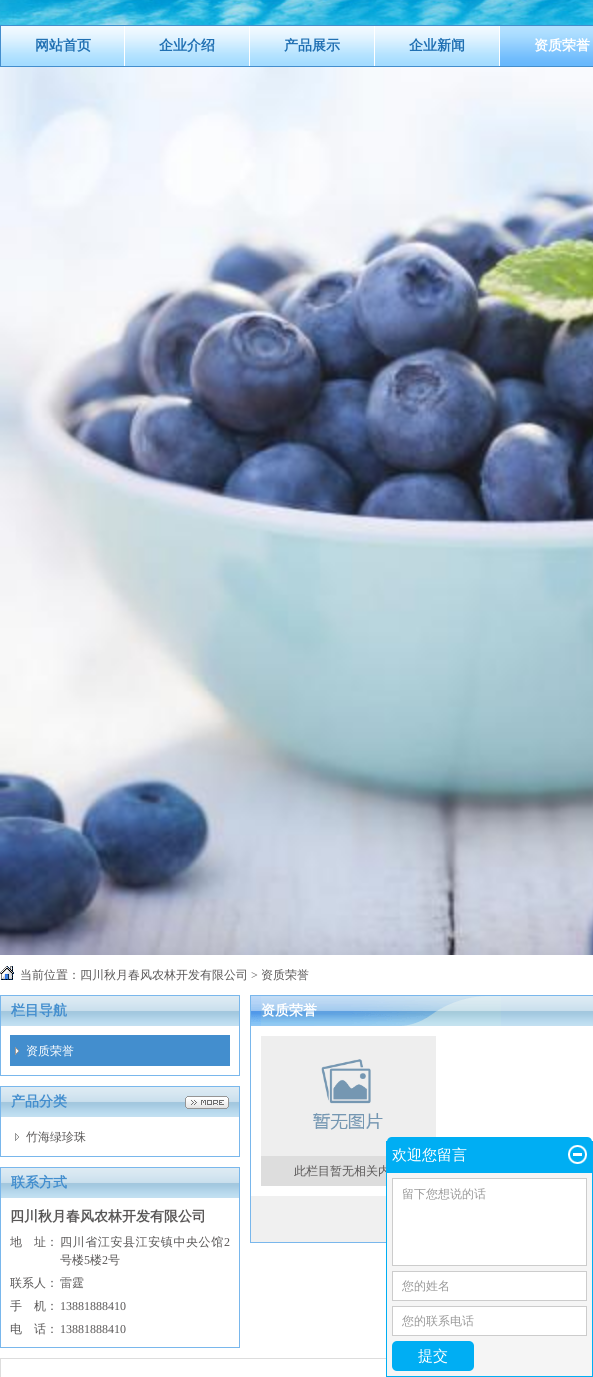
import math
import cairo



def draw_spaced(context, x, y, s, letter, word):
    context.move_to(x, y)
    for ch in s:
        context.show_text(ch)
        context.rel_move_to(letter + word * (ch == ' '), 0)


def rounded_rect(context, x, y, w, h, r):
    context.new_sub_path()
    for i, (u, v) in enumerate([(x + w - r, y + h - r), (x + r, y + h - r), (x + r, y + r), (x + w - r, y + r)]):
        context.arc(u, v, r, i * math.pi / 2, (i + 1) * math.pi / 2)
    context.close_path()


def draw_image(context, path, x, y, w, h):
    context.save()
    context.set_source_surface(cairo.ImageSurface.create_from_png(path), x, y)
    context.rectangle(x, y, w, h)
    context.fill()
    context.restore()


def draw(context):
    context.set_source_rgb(1, 1, 1)
    context.paint()
    draw_image(context, "images/1.png", 0, 0, 593, 25)
    draw_image(context, "images/2.png", 1, 26, 498, 40)
    context.rectangle(0.5, 25.5, 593, 41)
    context.set_source_rgb(67 / 255, 142 / 255, 206 / 255)
    context.set_line_width(1)
    context.stroke()
    context.set_source_rgb(1, 1, 1)
    context.rectangle(124, 26, 1, 40)
    context.fill()
    context.rectangle(249, 26, 1, 40)
    context.fill()
    context.rectangle(374, 26, 1, 40)
    context.fill()
    draw_image(context, "images/3.png", 500, 26, 93, 40)
    draw_image(context, "images/4.png", 0, 67, 593, 888)
    draw_image(context, "images/5.png", 0, 966, 14, 14)
    context.rectangle(0.5, 995.5, 239, 80)
    context.set_source_rgb(121 / 255, 183 / 255, 236 / 255)
    context.stroke()
    draw_image(context, "images/6.png", 1, 996, 238, 30)
    context.set_source_rgb(67 / 255, 142 / 255, 206 / 255)
    context.rectangle(10, 1035, 220, 31)
    context.fill()
    draw_image(context, "images/7.png", 15, 1047, 4, 8)
    context.rectangle(0.5, 1086.5, 239, 70)
    context.set_source_rgb(121 / 255, 183 / 255, 236 / 255)
    context.stroke()
    draw_image(context, "images/6.png", 1, 1087, 238, 30)
    draw_image(context, "images/8.png", 185, 1096, 44, 13)
    draw_image(context, "images/9.png", 15, 1133, 4, 8)
    context.rectangle(0.5, 1167.5, 239, 180)
    context.stroke()
    draw_image(context, "images/6.png", 1, 1168, 238, 30)
    context.rectangle(250.5, 995.5, 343, 247)
    context.stroke()
    draw_image(context, "images/10.png", 251, 996, 342, 30)
    draw_image(context, "images/11.png", 261, 1036, 175, 120)
    context.set_source_rgb(221 / 255, 221 / 255, 221 / 255)
    context.rectangle(261, 1156, 125, 30)
    context.fill()
    context.set_source_rgb(240 / 255, 240 / 255, 240 / 255)
    context.rectangle(251, 1196, 135, 46)
    context.fill()
    context.rectangle(0.5, 1358.5, 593, 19)
    context.set_source_rgb(221 / 255, 221 / 255, 221 / 255)
    context.stroke()
    context.select_font_face("WenQuanYi Zen Hei", cairo.FontSlant.NORMAL, cairo.FontWeight.BOLD)
    context.set_font_size(14)
    context.set_source_rgb(31 / 255, 111 / 255, 178 / 255)
    context.move_to(35, 50)
    context.show_text("网站首页")
    context.move_to(159, 50)
    context.show_text("企业介绍")
    context.move_to(284, 50)
    context.show_text("产品展示")
    context.move_to(409, 50)
    context.show_text("企业新闻")
    context.set_source_rgb(1, 1, 1)
    context.move_to(534, 50)
    context.show_text("资质荣誉")
    context.select_font_face("WenQuanYi Zen Hei Medium")
    context.set_font_size(12)
    context.set_source_rgb(89 / 255, 87 / 255, 87 / 255)
    context.move_to(20, 979)
    context.show_text("当前位置：四川秋月春风农林开发有限公司")
    context.select_font_face("Liberation Serif")
    context.move_to(251, 979)
    context.show_text(">")
    context.select_font_face("WenQuanYi Zen Hei Medium")
    context.move_to(261, 979)
    context.show_text("资质荣誉")
    context.select_font_face("WenQuanYi Zen Hei", cairo.FontSlant.NORMAL, cairo.FontWeight.BOLD)
    context.set_font_size(14)
    context.set_source_rgb(67 / 255, 142 / 255, 206 / 255)
    context.move_to(11, 1015)
    context.show_text("栏目导航")
    context.select_font_face("WenQuanYi Zen Hei Medium")
    context.set_font_size(12)
    context.set_source_rgb(1, 1, 1)
    context.move_to(26, 1055)
    context.show_text("资质荣誉")
    context.select_font_face("WenQuanYi Zen Hei", cairo.FontSlant.NORMAL, cairo.FontWeight.BOLD)
    context.set_font_size(14)
    context.set_source_rgb(67 / 255, 142 / 255, 206 / 255)
    context.move_to(11, 1106)
    context.show_text("产品分类")
    context.select_font_face("WenQuanYi Zen Hei Medium")
    context.set_font_size(12)
    context.set_source_rgb(89 / 255, 87 / 255, 87 / 255)
    context.move_to(26, 1141)
    context.show_text("竹海绿珍珠")
    context.select_font_face("WenQuanYi Zen Hei", cairo.FontSlant.NORMAL, cairo.FontWeight.BOLD)
    context.set_font_size(14)
    context.set_source_rgb(67 / 255, 142 / 255, 206 / 255)
    context.move_to(11, 1187)
    context.show_text("联系方式")
    context.set_source_rgb(89 / 255, 87 / 255, 87 / 255)
    context.move_to(10, 1221)
    context.show_text("四川秋月春风农林开发有限公司")
    context.select_font_face("WenQuanYi Zen Hei Medium")
    context.set_font_size(12)
    context.move_to(10, 1246)
    context.show_text("地")
    context.move_to(34, 1246)
    context.show_text("址：")
    draw_spaced(context, 60, 1246, "四川省江安县江安镇中央公馆", 0.6, 0)
    context.select_font_face("Liberation Serif")
    draw_spaced(context, 224, 1246, "2", 0.6, 0)
    context.select_font_face("WenQuanYi Zen Hei Medium")
    context.move_to(60, 1264)
    context.show_text("号楼")
    context.select_font_face("Liberation Serif")
    context.move_to(84, 1264)
    context.show_text("5")
    context.select_font_face("WenQuanYi Zen Hei Medium")
    context.move_to(90, 1264)
    context.show_text("楼")
    context.select_font_face("Liberation Serif")
    context.move_to(102, 1264)
    context.show_text("2")
    context.select_font_face("WenQuanYi Zen Hei Medium")
    context.move_to(108, 1264)
    context.show_text("号")
    context.move_to(10, 1287)
    context.show_text("联系人：")
    context.move_to(60, 1287)
    context.show_text("雷霆")
    context.move_to(10, 1310)
    context.show_text("手")
    context.move_to(34, 1310)
    context.show_text("机：")
    context.select_font_face("Liberation Serif")
    context.move_to(60, 1310)
    context.show_text("13881888410")
    context.select_font_face("WenQuanYi Zen Hei Medium")
    context.move_to(10, 1333)
    context.show_text("电")
    context.move_to(34, 1333)
    context.show_text("话：")
    context.select_font_face("Liberation Serif")
    context.move_to(60, 1333)
    context.show_text("13881888410")
    context.select_font_face("WenQuanYi Zen Hei", cairo.FontSlant.NORMAL, cairo.FontWeight.BOLD)
    context.set_font_size(14)
    context.set_source_rgb(1, 1, 1)
    context.move_to(261, 1015)
    context.show_text("资质荣誉")
    context.select_font_face("WenQuanYi Zen Hei Medium")
    context.set_font_size(12)
    context.set_source_rgb(89 / 255, 87 / 255, 87 / 255)
    context.move_to(294, 1175)
    context.show_text("此栏目暂无相关内")
    context.set_source_rgb(245 / 255, 245 / 255, 245 / 255)
    context.rectangle(387, 1173, 205, 203)
    context.fill()
    context.rectangle(386.5, 1141.5, 206, 235)
    context.set_source_rgb(0, 174 / 255, 243 / 255)
    context.stroke()
    context.new_path()
    context.move_to(392, 1137)
    context.line_to(587, 1137)
    context.curve_to(590, 1137, 592, 1139, 592, 1142)
    context.line_to(592, 1173)
    context.line_to(387, 1173)
    context.line_to(387, 1142)
    context.curve_to(387, 1139, 389, 1137, 392, 1137)
    context.close_path()
    context.fill()
    context.set_font_size(15)
    context.set_source_rgb(1, 1, 1)
    context.move_to(392, 1160)
    context.show_text("欢迎您留言")
    draw_image(context, "images/12.png", 568, 1145, 19, 19)
    context.rectangle(392.5, 1178.5, 194, 87)
    context.fill_preserve()
    context.set_source_rgb(204 / 255, 204 / 255, 204 / 255)
    context.stroke()
    context.set_font_size(12)
    context.set_source_rgb(153 / 255, 153 / 255, 153 / 255)
    context.move_to(402, 1198)
    context.show_text("留下您想说的话")
    context.set_source_rgb(1, 1, 1)
    context.rectangle(392.5, 1271.5, 194, 29)
    context.fill_preserve()
    context.set_source_rgb(204 / 255, 204 / 255, 204 / 255)
    context.stroke()
    context.set_source_rgb(153 / 255, 153 / 255, 153 / 255)
    context.move_to(402, 1290)
    context.show_text("您的姓名")
    context.set_source_rgb(1, 1, 1)
    context.rectangle(392.5, 1306.5, 194, 29)
    context.fill_preserve()
    context.set_source_rgb(204 / 255, 204 / 255, 204 / 255)
    context.stroke()
    context.set_source_rgb(153 / 255, 153 / 255, 153 / 255)
    context.move_to(402, 1325)
    context.show_text("您的联系电话")
    context.set_source_rgb(0, 174 / 255, 243 / 255)
    rounded_rect(context, 392, 1341, 82, 30, 5)
    context.fill()
    context.set_font_size(15)
    context.set_source_rgb(1, 1, 1)
    context.move_to(418, 1361)
    context.show_text("提交")


surface = cairo.ImageSurface(cairo.Format.RGB24, 593, 1377)
context = cairo.Context(surface)
options = cairo.FontOptions()
options.set_hint_metrics(cairo.HintMetrics.OFF)
options.set_hint_style(cairo.HintStyle.NONE)
context.set_font_options(options)
context.set_miter_limit(4)
draw(context)
surface.write_to_png("out.png")
